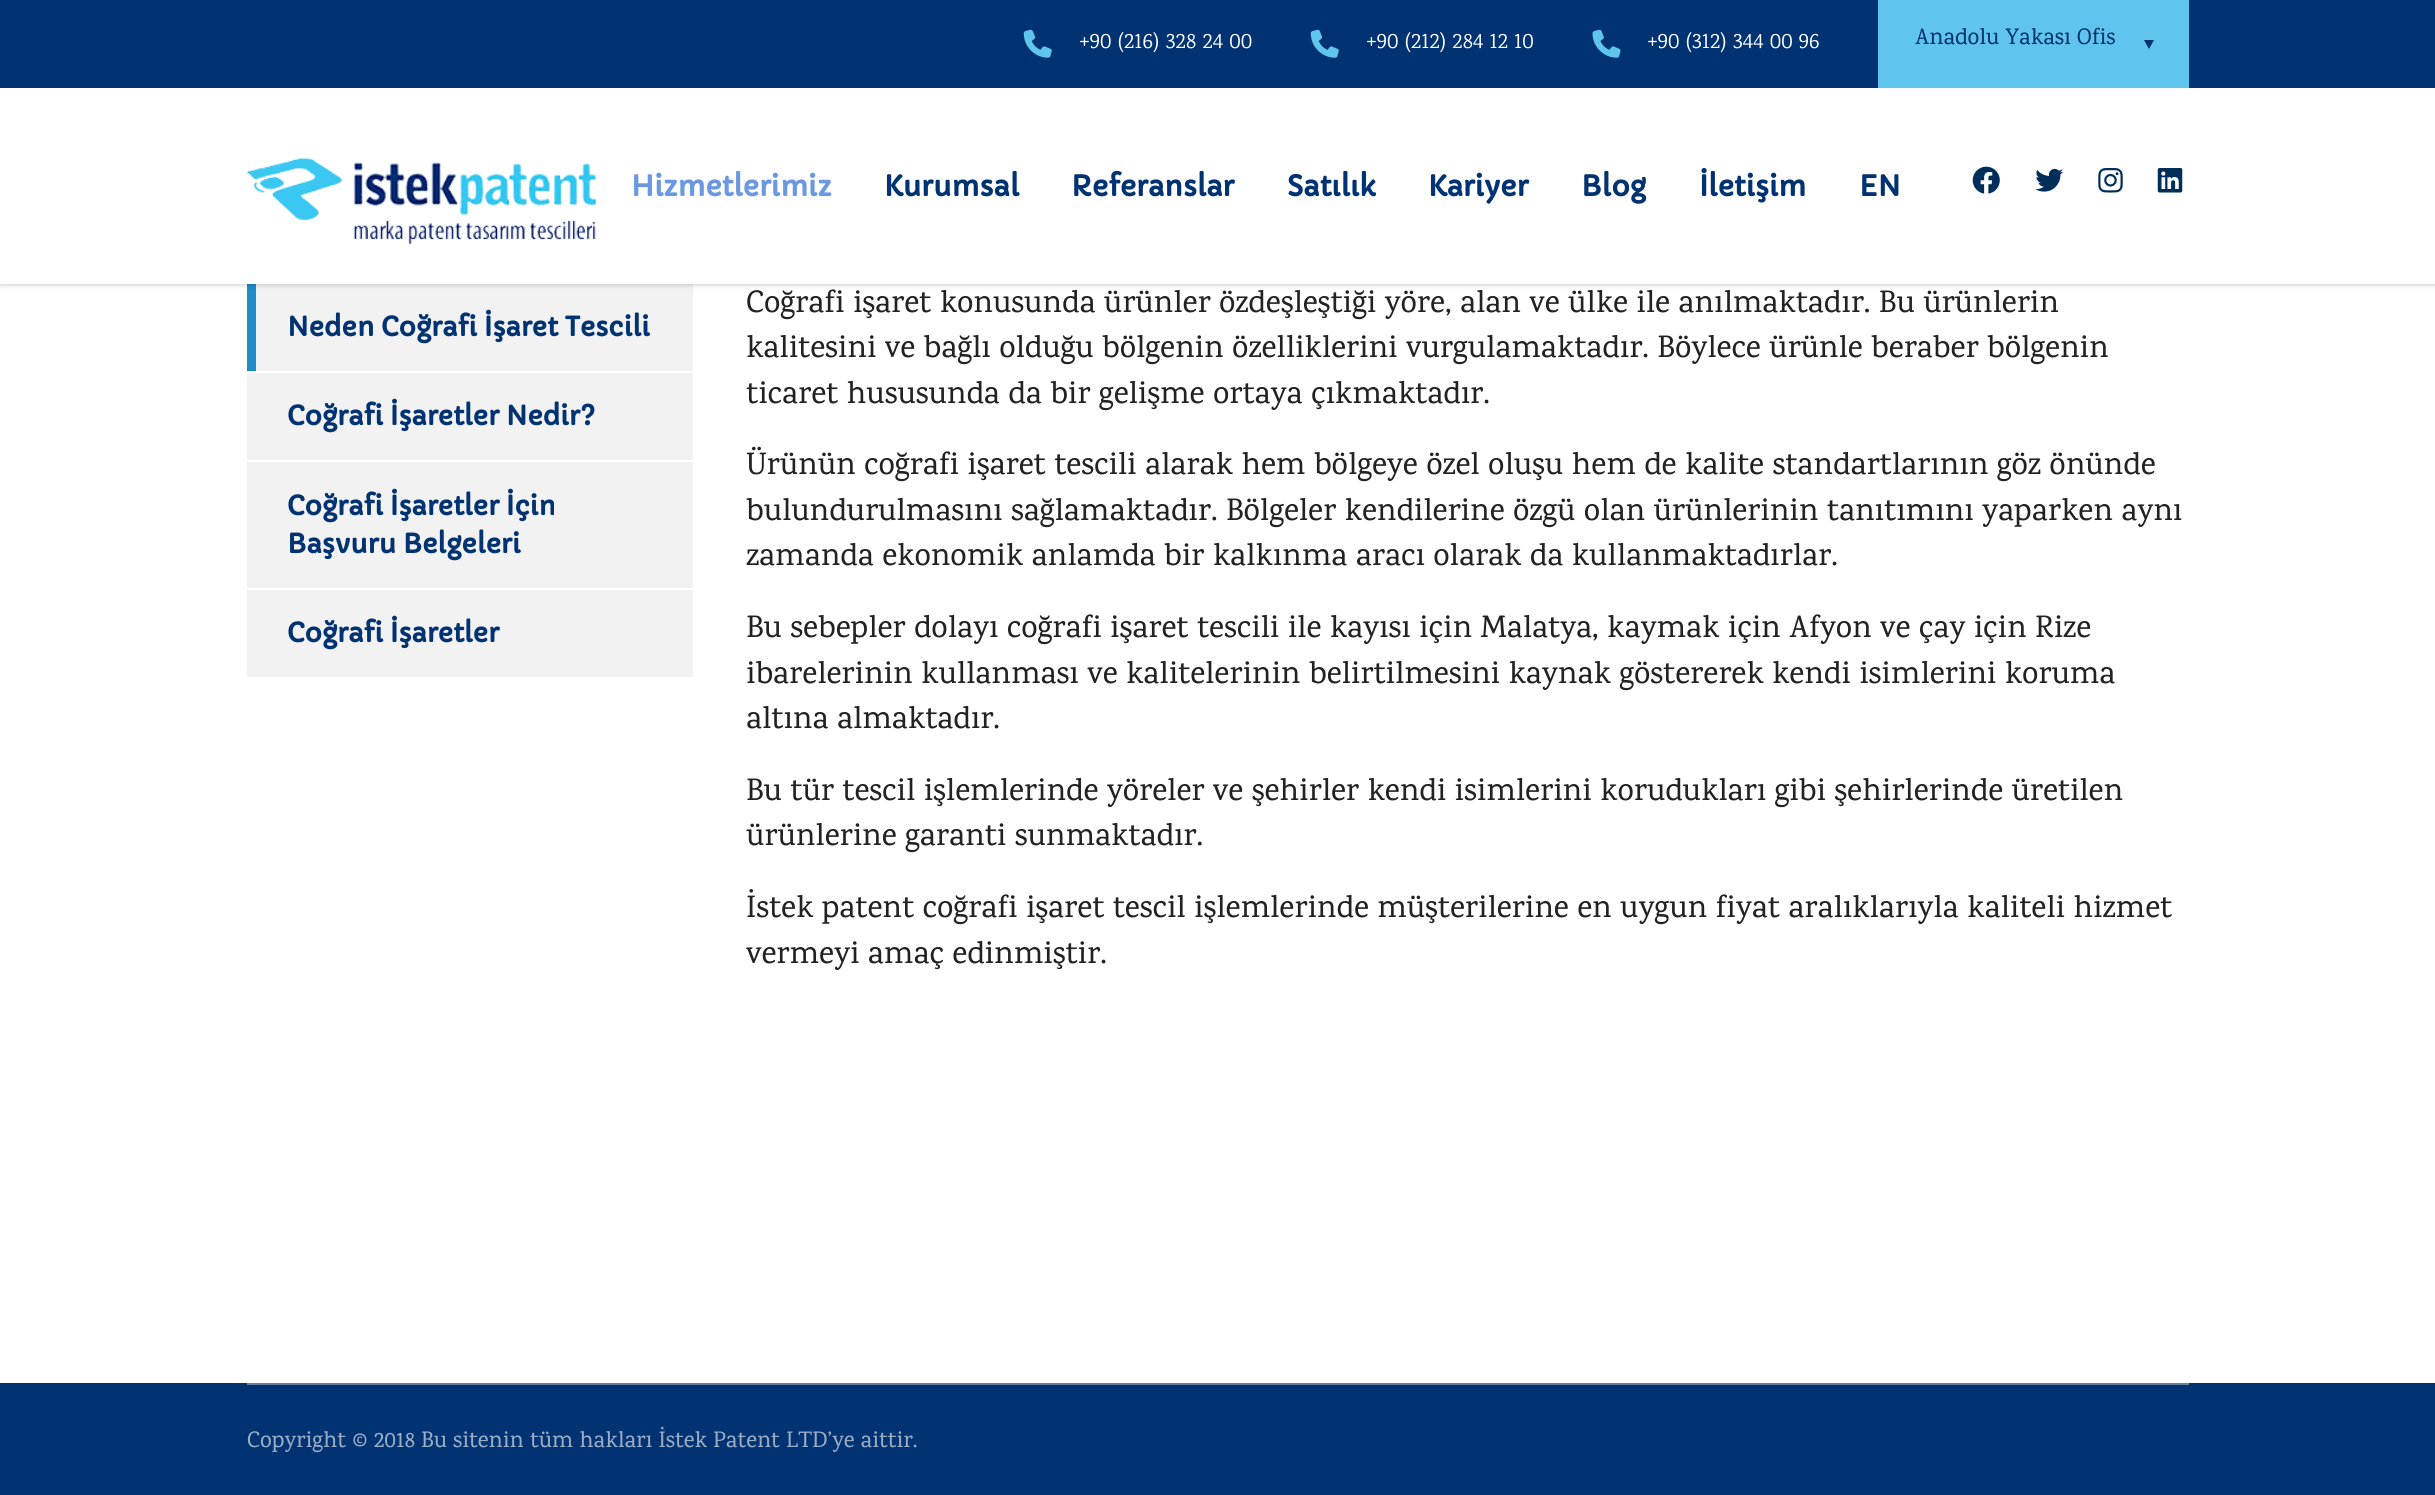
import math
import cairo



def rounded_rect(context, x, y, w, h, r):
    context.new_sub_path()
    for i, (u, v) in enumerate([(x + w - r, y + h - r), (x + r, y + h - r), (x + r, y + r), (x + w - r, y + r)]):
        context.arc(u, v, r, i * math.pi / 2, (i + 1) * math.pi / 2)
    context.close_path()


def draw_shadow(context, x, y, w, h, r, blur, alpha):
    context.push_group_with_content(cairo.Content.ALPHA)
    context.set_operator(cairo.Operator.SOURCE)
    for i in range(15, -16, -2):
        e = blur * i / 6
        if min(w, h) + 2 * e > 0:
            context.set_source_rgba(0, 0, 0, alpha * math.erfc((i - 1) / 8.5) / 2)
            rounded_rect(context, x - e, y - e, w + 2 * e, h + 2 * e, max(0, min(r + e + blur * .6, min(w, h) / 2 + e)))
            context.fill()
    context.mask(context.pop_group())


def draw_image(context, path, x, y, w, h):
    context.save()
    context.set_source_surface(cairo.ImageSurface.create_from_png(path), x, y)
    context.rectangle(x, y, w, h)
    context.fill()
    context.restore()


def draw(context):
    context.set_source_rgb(1, 1, 1)
    context.paint()
    context.set_source_rgb(242 / 255, 242 / 255, 242 / 255)
    context.rectangle(256, 284, 437, 87)
    context.fill()
    context.set_source_rgb(32 / 255, 139 / 255, 201 / 255)
    context.rectangle(247, 284, 9, 87)
    context.fill()
    context.save()
    context.set_fill_rule(cairo.FillRule.EVEN_ODD)
    context.new_path()
    context.move_to(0, 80)
    context.line_to(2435, 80)
    context.line_to(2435, 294)
    context.line_to(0, 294)
    context.close_path()
    context.move_to(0, 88)
    context.line_to(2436, 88)
    context.line_to(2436, 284)
    context.line_to(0, 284)
    context.close_path()
    context.clip()
    context.set_source_rgb(0, 0, 0)
    draw_shadow(context, 0, 89, 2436, 196, 0, 2.5, 0.2)
    context.restore()
    context.set_source_rgb(1 / 255, 50 / 255, 114 / 255)
    context.rectangle(0, 0, 2435, 88)
    context.fill()
    draw_image(context, "images/1.png", 1023, 29, 29, 29)
    draw_image(context, "images/1.png", 1310, 29, 29, 29)
    draw_image(context, "images/2.png", 1592, 29, 29, 29)
    context.set_source_rgb(96 / 255, 197 / 255, 237 / 255)
    context.rectangle(1878, 0, 311, 88)
    context.fill()
    context.set_source_rgb(1 / 255, 50 / 255, 114 / 255)
    context.new_path()
    context.move_to(2144, 40)
    context.line_to(2154, 40)
    context.line_to(2149, 49)
    context.close_path()
    context.fill()
    context.set_source_rgba(1, 1, 1, 0.3)
    context.rectangle(0, 283, 2435, 1)
    context.fill()
    draw_image(context, "images/3.png", 246, 157, 351, 88)
    draw_image(context, "images/4.png", 1972, 166, 28, 28)
    draw_image(context, "images/5.png", 2035, 168, 29, 24)
    draw_image(context, "images/6.png", 2098, 168, 25, 25)
    draw_image(context, "images/7.png", 2157, 168, 26, 25)
    context.set_source_rgb(242 / 255, 242 / 255, 242 / 255)
    context.rectangle(247, 373, 446, 87)
    context.fill()
    context.rectangle(247, 462, 446, 126)
    context.fill()
    context.rectangle(247, 590, 446, 87)
    context.fill()
    context.set_source_rgb(1 / 255, 50 / 255, 114 / 255)
    context.rectangle(0, 1383, 2435, 112)
    context.fill()
    context.set_source_rgb(103 / 255, 127 / 255, 159 / 255)
    context.rectangle(247, 1383, 1942, 2)
    context.fill()
    context.select_font_face("Karma")
    context.set_font_size(22.75)
    context.set_source_rgb(1, 1, 1)
    context.move_to(1079, 48)
    context.show_text("+90 (216) 328 24 00")
    context.move_to(1366, 48)
    context.show_text("+90 (212) 284 12 10")
    context.move_to(1647, 48)
    context.show_text("+90 (312) 344 00 96")
    context.select_font_face("Karma Medium")
    context.set_source_rgb(1 / 255, 50 / 255, 114 / 255)
    context.move_to(1915, 44)
    context.show_text("Anadolu Yakası Ofis")
    context.select_font_face("Capriola", cairo.FontSlant.NORMAL, cairo.FontWeight.BOLD)
    context.set_font_size(28)
    context.set_source_rgb(108 / 255, 152 / 255, 225 / 255)
    context.move_to(631, 196)
    context.show_text("Hizmetlerimiz")
    context.set_source_rgb(1 / 255, 50 / 255, 114 / 255)
    context.move_to(884, 196)
    context.show_text("Kurumsal")
    context.move_to(1071, 196)
    context.show_text("Referanslar")
    context.move_to(1287, 196)
    context.show_text("Satılık")
    context.move_to(1428, 196)
    context.show_text("Kariyer")
    context.move_to(1581, 196)
    context.show_text("Blog")
    context.move_to(1699, 196)
    context.show_text("İletişim")
    context.move_to(1859, 196)
    context.show_text("EN")
    context.set_font_size(26.25)
    context.move_to(287, 336)
    context.show_text("Neden Coğrafi İşaret Tescili")
    context.move_to(287, 425)
    context.show_text("Coğrafi İşaretler Nedir?")
    context.move_to(287, 515)
    context.show_text("Coğrafi İşaretler İçin")
    context.move_to(287, 553)
    context.show_text("Başvuru Belgeleri")
    context.move_to(287, 642)
    context.show_text("Coğrafi İşaretler")
    context.select_font_face("Karma Medium")
    context.set_font_size(31.5)
    context.set_source_rgb(34 / 255, 34 / 255, 34 / 255)
    context.move_to(746, 312)
    context.show_text("Coğrafi işaret konusunda ürünler özdeşleştiği yöre, alan ve ülke ile anılmaktadır. Bu ürünlerin")
    context.move_to(746, 357)
    context.show_text("kalitesini ve bağlı olduğu bölgenin özelliklerini vurgulamaktadır. Böylece ürünle beraber bölgenin")
    context.move_to(746, 403)
    context.show_text("ticaret hususunda da bir gelişme ortaya çıkmaktadır.")
    context.move_to(746, 474)
    context.show_text("Ürünün coğrafi işaret tescili alarak hem bölgeye özel oluşu hem de kalite standartlarının göz önünde")
    context.move_to(746, 520)
    context.show_text("bulundurulmasını sağlamaktadır. Bölgeler kendilerine özgü olan ürünlerinin tanıtımını yaparken aynı")
    context.move_to(746, 565)
    context.show_text("zamanda ekonomik anlamda bir kalkınma aracı olarak da kullanmaktadırlar.")
    context.move_to(746, 637)
    context.show_text("Bu sebepler dolayı coğrafi işaret tescili ile kayısı için Malatya, kaymak için Afyon ve çay için Rize")
    context.move_to(746, 683)
    context.show_text("ibarelerinin kullanması ve kalitelerinin belirtilmesini kaynak göstererek kendi isimlerini koruma")
    context.move_to(746, 728)
    context.show_text("altına almaktadır.")
    context.move_to(746, 800)
    context.show_text("Bu tür tescil işlemlerinde yöreler ve şehirler kendi isimlerini korudukları gibi şehirlerinde üretilen")
    context.move_to(746, 845)
    context.show_text("ürünlerine garanti sunmaktadır.")
    context.move_to(746, 917)
    context.show_text("İstek patent coğrafi işaret tescil işlemlerinde müşterilerine en uygun fiyat aralıklarıyla kaliteli hizmet")
    context.move_to(746, 963)
    context.show_text("vermeyi amaç edinmiştir.")
    context.set_font_size(22.75)
    context.set_source_rgb(153 / 255, 173 / 255, 199 / 255)
    context.move_to(247, 1447)
    context.show_text("Copyright © 2018 Bu sitenin tüm hakları İstek Patent LTD’ye aittir.")


surface = cairo.ImageSurface(cairo.Format.RGB24, 2435, 1495)
context = cairo.Context(surface)
options = cairo.FontOptions()
options.set_hint_metrics(cairo.HintMetrics.OFF)
options.set_hint_style(cairo.HintStyle.NONE)
context.set_font_options(options)
context.set_miter_limit(4)
draw(context)
surface.write_to_png("out.png")
